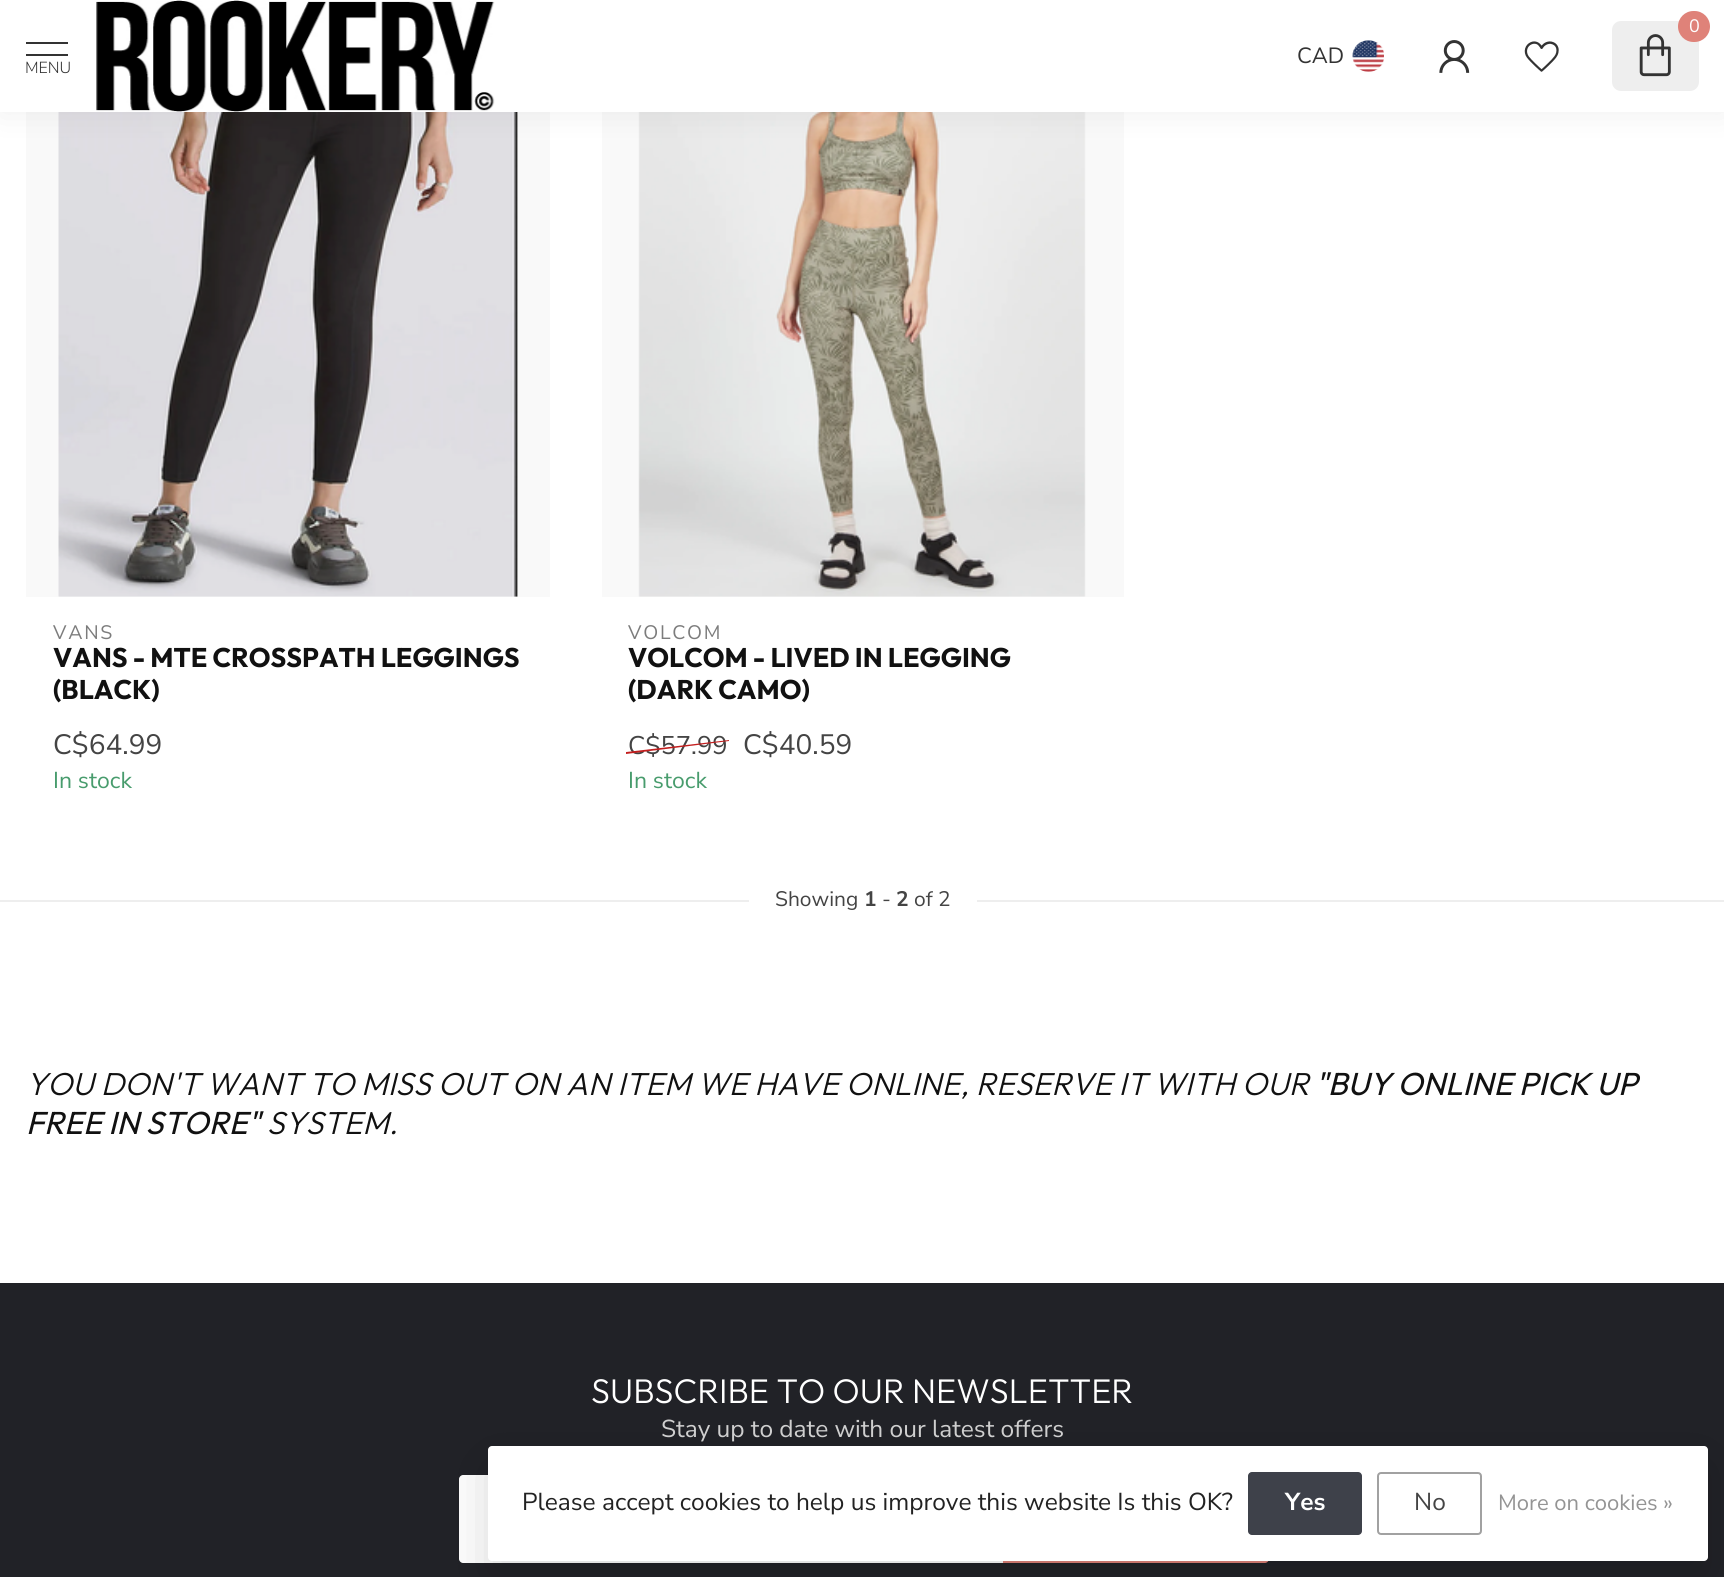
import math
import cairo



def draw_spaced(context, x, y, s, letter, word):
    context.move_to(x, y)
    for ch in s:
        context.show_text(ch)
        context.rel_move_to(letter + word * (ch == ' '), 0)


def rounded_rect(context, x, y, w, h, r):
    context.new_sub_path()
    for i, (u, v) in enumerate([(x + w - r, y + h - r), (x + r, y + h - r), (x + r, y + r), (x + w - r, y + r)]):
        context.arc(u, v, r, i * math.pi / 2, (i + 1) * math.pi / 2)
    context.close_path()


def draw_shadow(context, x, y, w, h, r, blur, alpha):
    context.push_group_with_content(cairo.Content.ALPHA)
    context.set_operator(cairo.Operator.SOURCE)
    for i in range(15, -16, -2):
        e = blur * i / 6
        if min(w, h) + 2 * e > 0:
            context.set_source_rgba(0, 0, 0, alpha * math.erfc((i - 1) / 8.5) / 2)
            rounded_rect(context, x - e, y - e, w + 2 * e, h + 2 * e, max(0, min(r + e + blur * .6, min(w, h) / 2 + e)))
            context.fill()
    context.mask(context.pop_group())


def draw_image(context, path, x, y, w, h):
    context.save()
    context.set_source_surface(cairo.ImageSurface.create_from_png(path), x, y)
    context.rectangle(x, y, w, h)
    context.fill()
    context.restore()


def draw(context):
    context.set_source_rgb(1, 1, 1)
    context.paint()
    context.set_source_rgb(249 / 255, 249 / 255, 249 / 255)
    context.rectangle(26, 112, 524, 485)
    context.fill()
    draw_image(context, "images/6.png", 58, 112, 460, 485)
    context.rectangle(602, 112, 522, 485)
    context.fill()
    draw_image(context, "images/7.png", 638, 112, 448, 485)
    context.set_source_rgb(0, 0, 0)
    draw_shadow(context, 0, -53, 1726, 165, 0, 17.5, 0.07)
    context.set_source_rgb(1, 1, 1)
    context.rectangle(0, 0, 1724, 112)
    context.fill()
    context.set_source_rgb(238 / 255, 238 / 255, 238 / 255)
    rounded_rect(context, 1612, 21, 87, 70, 9)
    context.fill()
    context.set_source_rgb(223 / 255, 130 / 255, 121 / 255)
    rounded_rect(context, 1678, 11, 32, 31, 15.5)
    context.fill()
    draw_image(context, "images/1.png", 1639, 34, 32, 43)
    draw_image(context, "images/2.png", 1352, 40, 32, 32)
    draw_image(context, "images/3.png", 1439, 40, 31, 33)
    draw_image(context, "images/4.png", 1524, 41, 35, 31)
    context.set_source_rgb(51 / 255, 51 / 255, 51 / 255)
    context.rectangle(26, 42, 42, 2)
    context.fill()
    context.rectangle(26, 54, 42, 2)
    context.fill()
    draw_image(context, "images/5.png", 96, 0, 399, 112)
    context.set_source_rgb(238 / 255, 238 / 255, 238 / 255)
    context.rectangle(0, 900, 1724, 2)
    context.fill()
    context.set_source_rgb(1, 1, 1)
    context.rectangle(749, 900, 228, 2)
    context.fill()
    context.set_source_rgb(33 / 255, 34 / 255, 39 / 255)
    context.rectangle(0, 1283, 1724, 294)
    context.fill()
    context.set_source_rgb(1, 1, 1)
    context.new_path()
    context.move_to(463, 1475)
    context.line_to(1003, 1475)
    context.line_to(1003, 1563)
    context.line_to(463, 1563)
    context.curve_to(461, 1563, 459, 1561, 459, 1559)
    context.line_to(459, 1479)
    context.curve_to(459, 1477, 461, 1475, 463, 1475)
    context.close_path()
    context.fill()
    context.set_source_rgb(223 / 255, 130 / 255, 121 / 255)
    context.new_path()
    context.move_to(1003, 1475)
    context.line_to(1265, 1475)
    context.curve_to(1267, 1475, 1269, 1477, 1269, 1479)
    context.line_to(1269, 1559)
    context.curve_to(1269, 1561, 1267, 1563, 1265, 1563)
    context.line_to(1003, 1563)
    context.close_path()
    context.fill()
    context.set_source_rgb(0, 0, 0)
    draw_shadow(context, 488, 1463, 1220, 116, 4, 26, 0.15)
    context.set_source_rgb(1, 1, 1)
    rounded_rect(context, 488, 1446, 1220, 115, 4)
    context.fill()
    context.set_source_rgb(62 / 255, 65 / 255, 74 / 255)
    rounded_rect(context, 1248, 1472, 114, 63, 4)
    context.fill()
    rounded_rect(context, 1378, 1473, 103, 61, 3)
    context.set_source_rgb(161 / 255, 161 / 255, 161 / 255)
    context.stroke()
    context.select_font_face("Nunito Sans")
    context.set_font_size(18)
    context.set_source_rgb(1, 1, 1)
    context.move_to(1689, 32)
    context.show_text("0")
    context.set_font_size(22)
    context.set_source_rgb(51 / 255, 51 / 255, 51 / 255)
    context.move_to(1297, 63)
    context.show_text("CAD")
    context.select_font_face("Nunito Sans Light")
    context.set_font_size(16)
    context.move_to(25, 73)
    context.show_text("MENU")
    context.select_font_face("Nunito Sans")
    context.set_font_size(19.5)
    context.set_source_rgb(124 / 255, 124 / 255, 124 / 255)
    draw_spaced(context, 53, 639, "VANS", 1.75, 0)
    context.select_font_face("Outfit", cairo.FontSlant.NORMAL, cairo.FontWeight.BOLD)
    context.set_font_size(27)
    context.set_source_rgb(17 / 255, 17 / 255, 17 / 255)
    context.move_to(53, 667)
    context.show_text("VANS - MTE CROSSPATH LEGGINGS")
    context.move_to(53, 699)
    context.show_text("(BLACK)")
    context.select_font_face("Nunito Sans")
    context.set_font_size(28)
    context.set_source_rgb(68 / 255, 68 / 255, 68 / 255)
    context.move_to(53, 754)
    context.show_text("C$64.99")
    context.set_font_size(23)
    context.set_source_rgb(72 / 255, 156 / 255, 109 / 255)
    context.move_to(53, 788)
    context.show_text("In stock")
    context.set_font_size(19.5)
    context.set_source_rgb(124 / 255, 124 / 255, 124 / 255)
    draw_spaced(context, 628, 639, "VOLCOM", 1.75, 0)
    context.select_font_face("Outfit", cairo.FontSlant.NORMAL, cairo.FontWeight.BOLD)
    context.set_font_size(27)
    context.set_source_rgb(17 / 255, 17 / 255, 17 / 255)
    context.move_to(628, 667)
    context.show_text("VOLCOM - LIVED IN LEGGING")
    context.move_to(628, 699)
    context.show_text("(DARK CAMO)")
    context.select_font_face("Nunito Sans")
    context.set_font_size(25.5)
    context.set_source_rgb(68 / 255, 68 / 255, 68 / 255)
    context.move_to(628, 754)
    context.show_text("C$57.99")
    context.set_source_rgb(195 / 255, 30 / 255, 30 / 255)
    context.new_path()
    context.move_to(626, 752)
    context.line_to(729, 740)
    context.line_to(729, 741)
    context.line_to(626, 754)
    context.close_path()
    context.fill()
    context.set_font_size(28)
    context.set_source_rgb(68 / 255, 68 / 255, 68 / 255)
    context.move_to(743, 754)
    context.show_text("C$40.59")
    context.set_font_size(23)
    context.set_source_rgb(72 / 255, 156 / 255, 109 / 255)
    context.move_to(628, 788)
    context.show_text("In stock")
    context.set_font_size(21)
    context.set_source_rgb(68 / 255, 68 / 255, 68 / 255)
    context.move_to(775, 906)
    context.show_text("Showing")
    context.select_font_face("Nunito Sans", cairo.FontSlant.NORMAL, cairo.FontWeight.BOLD)
    context.move_to(864, 906)
    context.show_text("1")
    context.select_font_face("Nunito Sans")
    context.move_to(882, 906)
    context.show_text("-")
    context.select_font_face("Nunito Sans", cairo.FontSlant.NORMAL, cairo.FontWeight.BOLD)
    context.move_to(896, 906)
    context.show_text("2")
    context.select_font_face("Nunito Sans")
    context.move_to(914, 906)
    context.show_text("of 2")
    context.select_font_face("Outfit Light", cairo.FontSlant.ITALIC)
    context.set_font_size(31.85)
    context.set_source_rgb(17 / 255, 17 / 255, 17 / 255)
    context.move_to(26, 1095)
    context.show_text("YOU DON'T WANT TO MISS OUT ON AN ITEM WE HAVE ONLINE, RESERVE IT WITH OUR")
    context.select_font_face("Outfit", cairo.FontSlant.ITALIC)
    context.move_to(1315, 1095)
    context.show_text("\"BUY ONLINE PICK UP")
    context.move_to(26, 1134)
    context.show_text("FREE IN STORE\"")
    context.select_font_face("Outfit Light", cairo.FontSlant.ITALIC)
    context.move_to(267, 1134)
    context.show_text("SYSTEM.")
    context.select_font_face("Outfit Light")
    context.set_font_size(34.25)
    context.set_source_rgb(1, 1, 1)
    context.move_to(591, 1403)
    context.show_text("SUBSCRIBE TO OUR NEWSLETTER")
    context.select_font_face("Nunito Sans")
    context.set_font_size(24.5)
    context.set_source_rgb(207 / 255, 207 / 255, 207 / 255)
    context.move_to(661, 1437)
    context.show_text("Stay up to date with our latest offers")
    context.set_source_rgb(34 / 255, 34 / 255, 34 / 255)
    context.move_to(522, 1510)
    context.show_text("Please accept cookies to help us improve this website Is this OK?")
    context.select_font_face("Nunito Sans", cairo.FontSlant.NORMAL, cairo.FontWeight.BOLD)
    context.set_source_rgb(1, 1, 1)
    context.move_to(1285, 1510)
    context.show_text("Yes")
    context.select_font_face("Nunito Sans")
    context.set_source_rgb(68 / 255, 68 / 255, 68 / 255)
    context.move_to(1414, 1510)
    context.show_text("No")
    context.set_font_size(22)
    context.set_source_rgb(148 / 255, 148 / 255, 148 / 255)
    context.move_to(1498, 1510)
    context.show_text("More on cookies »")


surface = cairo.ImageSurface(cairo.Format.RGB24, 1724, 1577)
context = cairo.Context(surface)
options = cairo.FontOptions()
options.set_hint_metrics(cairo.HintMetrics.OFF)
options.set_hint_style(cairo.HintStyle.NONE)
context.set_font_options(options)
context.set_miter_limit(4)
draw(context)
surface.write_to_png("out.png")
